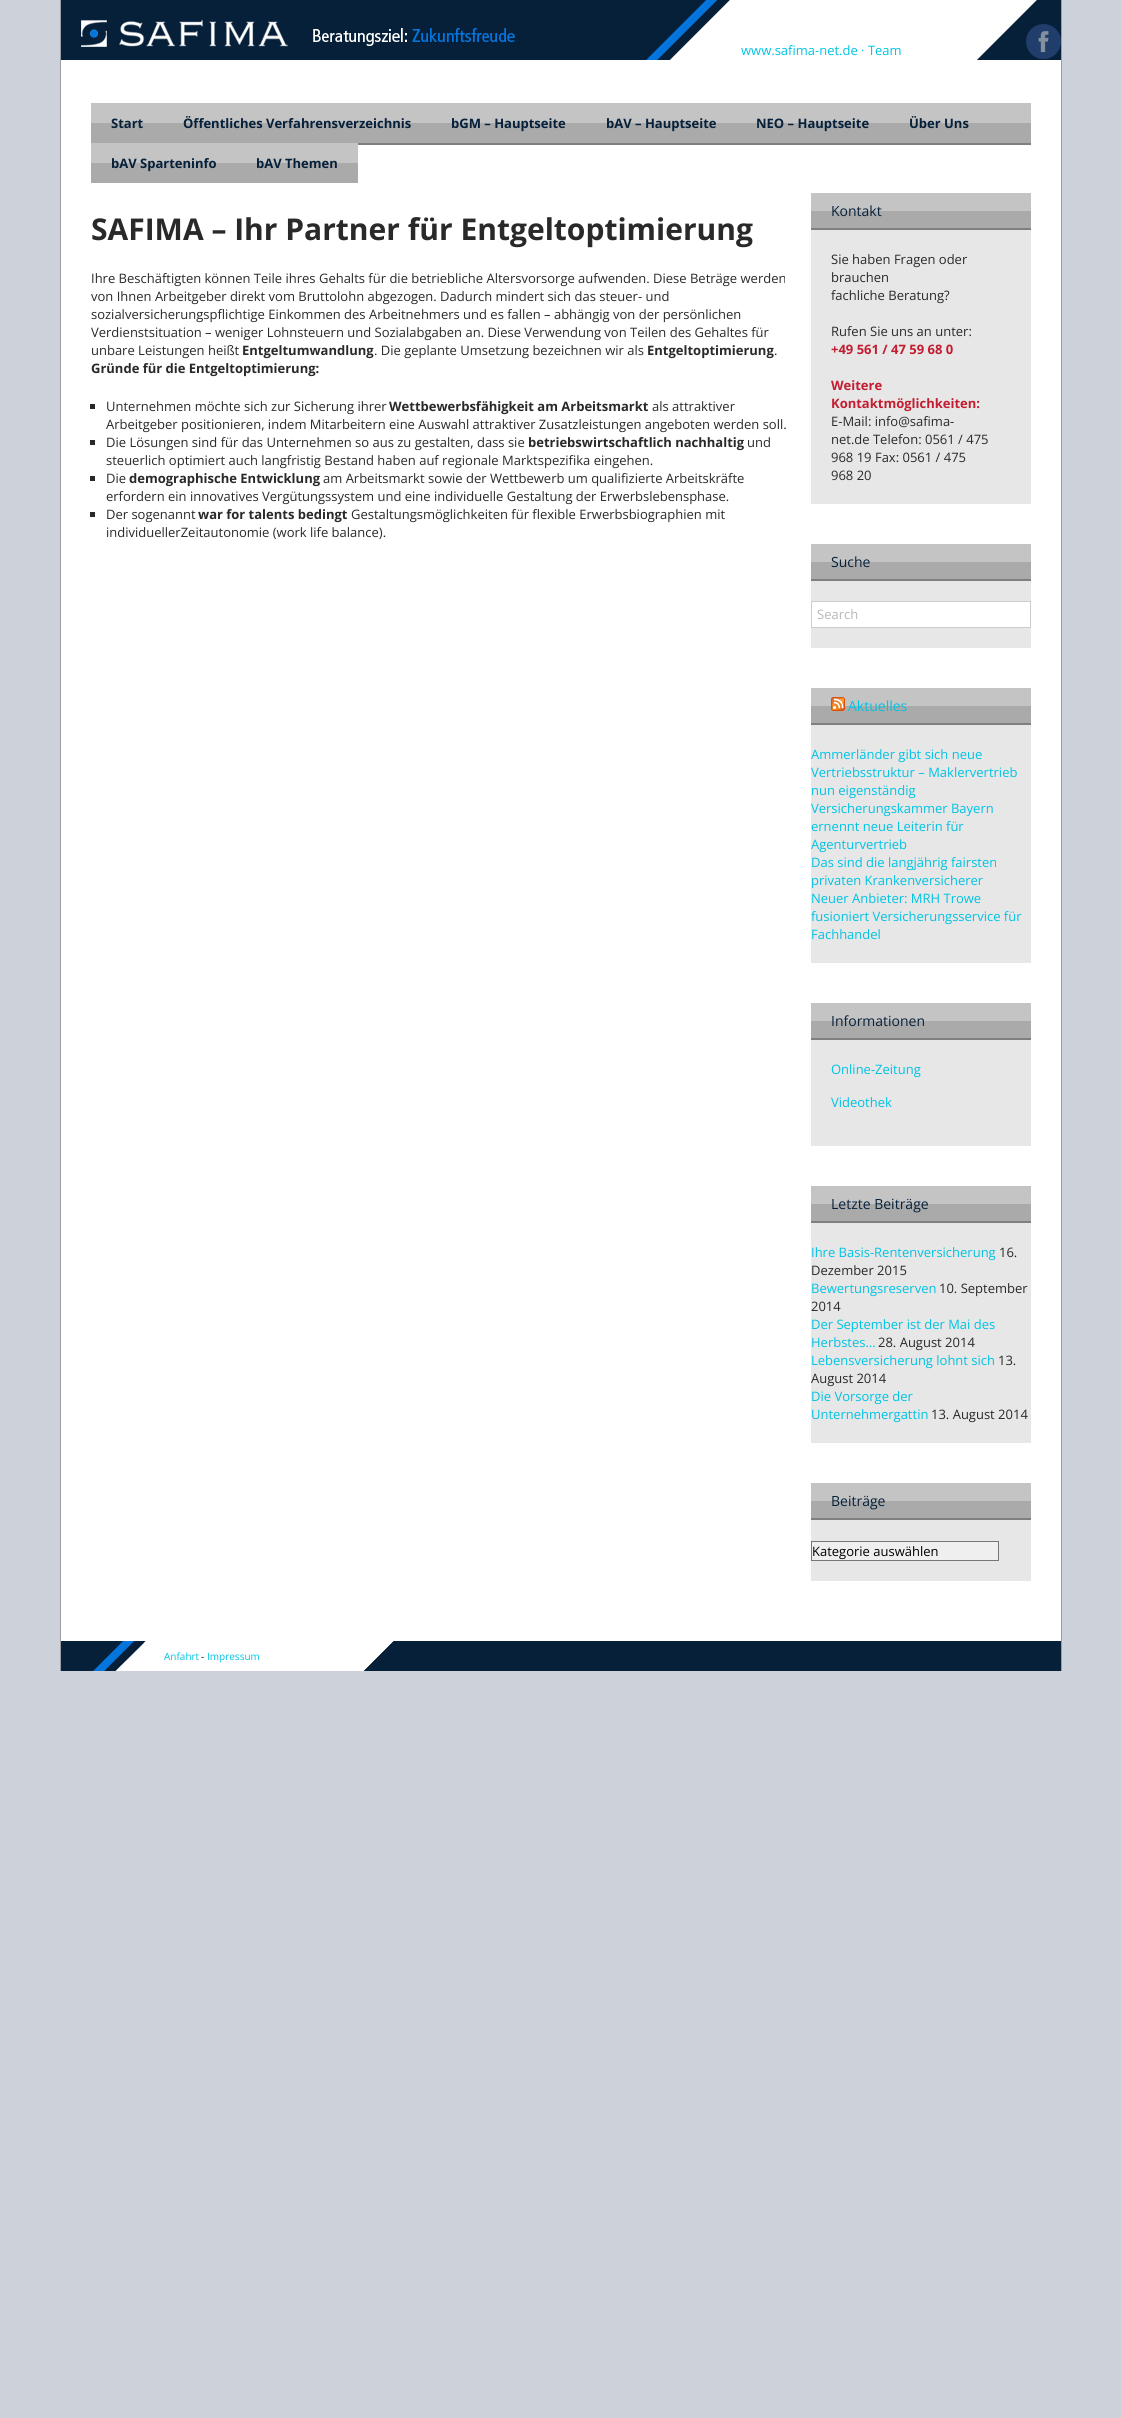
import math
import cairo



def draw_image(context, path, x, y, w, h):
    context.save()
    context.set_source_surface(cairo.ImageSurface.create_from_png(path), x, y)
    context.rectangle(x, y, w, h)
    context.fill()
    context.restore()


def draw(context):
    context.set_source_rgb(205 / 255, 210 / 255, 218 / 255)
    context.paint()
    context.set_source_rgb(1, 1, 1)
    context.rectangle(61, 0, 1000, 1671)
    context.fill()
    context.set_source_rgb(154 / 255, 157 / 255, 163 / 255)
    context.rectangle(1061, 0, 1, 1671)
    context.fill()
    context.rectangle(60, 0, 1, 1671)
    context.fill()
    draw_image(context, "images/1.png", 61, 0, 1000, 60)
    draw_image(context, "images/2.png", 81, 20, 207, 27)
    draw_image(context, "images/3.png", 1026, 24, 35, 35)
    context.set_source_rgb(196 / 255, 196 / 255, 196 / 255)
    context.rectangle(91, 103, 940, 20)
    context.fill()
    context.set_source_rgb(170 / 255, 170 / 255, 170 / 255)
    context.rectangle(91, 123, 940, 20)
    context.fill()
    context.set_source_rgb(127 / 255, 127 / 255, 127 / 255)
    context.rectangle(358, 143, 673, 2)
    context.fill()
    context.set_source_rgb(196 / 255, 196 / 255, 196 / 255)
    context.rectangle(91, 143, 267, 20)
    context.fill()
    context.set_source_rgb(170 / 255, 170 / 255, 170 / 255)
    context.rectangle(91, 163, 267, 20)
    context.fill()
    context.set_source_rgb(41 / 255, 41 / 255, 41 / 255)
    context.rectangle(90, 404, 5, 5)
    context.fill()
    context.rectangle(90, 440, 5, 5)
    context.fill()
    context.rectangle(90, 476, 5, 5)
    context.fill()
    context.rectangle(90, 512, 5, 5)
    context.fill()
    context.set_source_rgb(231 / 255, 231 / 255, 231 / 255)
    context.rectangle(811, 230, 220, 274)
    context.fill()
    context.set_source_rgb(196 / 255, 196 / 255, 196 / 255)
    context.rectangle(811, 193, 220, 18)
    context.fill()
    context.set_source_rgb(170 / 255, 170 / 255, 170 / 255)
    context.rectangle(811, 211, 220, 17)
    context.fill()
    context.set_source_rgb(127 / 255, 127 / 255, 127 / 255)
    context.rectangle(811, 228, 220, 2)
    context.fill()
    context.set_source_rgb(231 / 255, 231 / 255, 231 / 255)
    context.rectangle(811, 581, 220, 67)
    context.fill()
    context.set_source_rgb(196 / 255, 196 / 255, 196 / 255)
    context.rectangle(811, 544, 220, 18)
    context.fill()
    context.set_source_rgb(170 / 255, 170 / 255, 170 / 255)
    context.rectangle(811, 562, 220, 17)
    context.fill()
    context.set_source_rgb(127 / 255, 127 / 255, 127 / 255)
    context.rectangle(811, 579, 220, 2)
    context.fill()
    context.set_source_rgb(1, 1, 1)
    context.rectangle(811.5, 601.5, 219, 26)
    context.fill_preserve()
    context.set_source_rgb(204 / 255, 204 / 255, 204 / 255)
    context.set_line_width(1)
    context.stroke()
    context.set_source_rgb(231 / 255, 231 / 255, 231 / 255)
    context.rectangle(811, 725, 220, 238)
    context.fill()
    context.set_source_rgb(196 / 255, 196 / 255, 196 / 255)
    context.rectangle(811, 688, 220, 18)
    context.fill()
    context.set_source_rgb(170 / 255, 170 / 255, 170 / 255)
    context.rectangle(811, 706, 220, 17)
    context.fill()
    context.set_source_rgb(127 / 255, 127 / 255, 127 / 255)
    context.rectangle(811, 723, 220, 2)
    context.fill()
    draw_image(context, "images/4.png", 831, 697, 14, 14)
    context.set_source_rgb(231 / 255, 231 / 255, 231 / 255)
    context.rectangle(811, 1040, 220, 106)
    context.fill()
    context.set_source_rgb(196 / 255, 196 / 255, 196 / 255)
    context.rectangle(811, 1003, 220, 18)
    context.fill()
    context.set_source_rgb(170 / 255, 170 / 255, 170 / 255)
    context.rectangle(811, 1021, 220, 17)
    context.fill()
    context.set_source_rgb(127 / 255, 127 / 255, 127 / 255)
    context.rectangle(811, 1038, 220, 2)
    context.fill()
    context.set_source_rgb(231 / 255, 231 / 255, 231 / 255)
    context.rectangle(811, 1223, 220, 220)
    context.fill()
    context.set_source_rgb(196 / 255, 196 / 255, 196 / 255)
    context.rectangle(811, 1186, 220, 18)
    context.fill()
    context.set_source_rgb(170 / 255, 170 / 255, 170 / 255)
    context.rectangle(811, 1204, 220, 17)
    context.fill()
    context.set_source_rgb(127 / 255, 127 / 255, 127 / 255)
    context.rectangle(811, 1221, 220, 2)
    context.fill()
    context.set_source_rgb(231 / 255, 231 / 255, 231 / 255)
    context.rectangle(811, 1520, 220, 61)
    context.fill()
    context.set_source_rgb(196 / 255, 196 / 255, 196 / 255)
    context.rectangle(811, 1483, 220, 18)
    context.fill()
    context.set_source_rgb(170 / 255, 170 / 255, 170 / 255)
    context.rectangle(811, 1501, 220, 17)
    context.fill()
    context.set_source_rgb(127 / 255, 127 / 255, 127 / 255)
    context.rectangle(811, 1518, 220, 2)
    context.fill()
    context.set_source_rgb(239 / 255, 239 / 255, 239 / 255)
    context.rectangle(811.5, 1541.5, 187, 19)
    context.fill_preserve()
    context.set_source_rgb(118 / 255, 118 / 255, 118 / 255)
    context.stroke()
    draw_image(context, "images/5.png", 61, 1641, 1000, 30)
    context.select_font_face("Open Sans")
    context.set_font_size(13)
    context.set_source_rgb(0, 195 / 255, 227 / 255)
    context.move_to(741, 55)
    context.show_text("www.safima-net.de · Team")
    context.select_font_face("Open Sans", cairo.FontSlant.NORMAL, cairo.FontWeight.BOLD)
    context.set_source_rgb(6 / 255, 32 / 255, 58 / 255)
    context.move_to(111, 128)
    context.show_text("Start")
    context.move_to(183, 128)
    context.show_text("Öffentliches Verfahrensverzeichnis")
    context.move_to(451, 128)
    context.show_text("bGM – Hauptseite")
    context.move_to(606, 128)
    context.show_text("bAV – Hauptseite")
    context.move_to(756, 128)
    context.show_text("NEO – Hauptseite")
    context.move_to(909, 128)
    context.show_text("Über Uns")
    context.move_to(111, 168)
    context.show_text("bAV Sparteninfo")
    context.move_to(256, 168)
    context.show_text("bAV Themen")
    context.set_font_size(30)
    context.set_source_rgb(41 / 255, 41 / 255, 41 / 255)
    context.move_to(91, 240)
    context.show_text("SAFIMA – Ihr Partner für Entgeltoptimierung")
    context.select_font_face("Open Sans")
    context.set_font_size(13)
    context.move_to(91, 283)
    context.show_text("Ihre Beschäftigten können Teile ihres Gehalts für die betriebliche Altersvorsorge aufwenden. Diese Beträge werden")
    context.move_to(91, 301)
    context.show_text("von Ihnen Arbeitgeber direkt vom Bruttolohn abgezogen. Dadurch mindert sich das steuer- und")
    context.move_to(91, 319)
    context.show_text("sozialversicherungspflichtige Einkommen des Arbeitnehmers und es fallen – abhängig von der persönlichen")
    context.move_to(91, 337)
    context.show_text("Verdienstsituation – weniger Lohnsteuern und Sozialabgaben an. Diese Verwendung von Teilen des Gehaltes für")
    context.move_to(91, 355)
    context.show_text("unbare Leistungen heißt")
    context.select_font_face("Open Sans", cairo.FontSlant.NORMAL, cairo.FontWeight.BOLD)
    context.move_to(242, 355)
    context.show_text("Entgeltumwandlung")
    context.select_font_face("Open Sans")
    context.move_to(374, 355)
    context.show_text(". Die geplante Umsetzung bezeichnen wir als")
    context.select_font_face("Open Sans", cairo.FontSlant.NORMAL, cairo.FontWeight.BOLD)
    context.move_to(647, 355)
    context.show_text("Entgeltoptimierung")
    context.select_font_face("Open Sans")
    context.move_to(774, 355)
    context.show_text(".")
    context.select_font_face("Open Sans", cairo.FontSlant.NORMAL, cairo.FontWeight.BOLD)
    context.move_to(91, 373)
    context.show_text("Gründe für die Entgeltoptimierung:")
    context.select_font_face("Open Sans")
    context.move_to(106, 411)
    context.show_text("Unternehmen möchte sich zur Sicherung ihrer")
    context.select_font_face("Open Sans", cairo.FontSlant.NORMAL, cairo.FontWeight.BOLD)
    context.move_to(389, 411)
    context.show_text("Wettbewerbsfähigkeit am Arbeitsmarkt")
    context.select_font_face("Open Sans")
    context.move_to(652, 411)
    context.show_text("als attraktiver")
    context.move_to(106, 429)
    context.show_text("Arbeitgeber positionieren, indem Mitarbeitern eine Auswahl attraktiver Zusatzleistungen angeboten werden soll.")
    context.move_to(106, 447)
    context.show_text("Die Lösungen sind für das Unternehmen so aus zu gestalten, dass sie")
    context.select_font_face("Open Sans", cairo.FontSlant.NORMAL, cairo.FontWeight.BOLD)
    context.move_to(528, 447)
    context.show_text("betriebswirtschaftlich nachhaltig")
    context.select_font_face("Open Sans")
    context.move_to(747, 447)
    context.show_text("und")
    context.move_to(106, 465)
    context.show_text("steuerlich optimiert auch langfristig Bestand haben auf regionale Marktspezifika eingehen.")
    context.move_to(106, 483)
    context.show_text("Die")
    context.select_font_face("Open Sans", cairo.FontSlant.NORMAL, cairo.FontWeight.BOLD)
    context.move_to(129, 483)
    context.show_text("demographische Entwicklung")
    context.select_font_face("Open Sans")
    context.move_to(323, 483)
    context.show_text("am Arbeitsmarkt sowie der Wettbewerb um qualifizierte Arbeitskräfte")
    context.move_to(106, 501)
    context.show_text("erfordern ein innovatives Vergütungssystem und eine individuelle Gestaltung der Erwerbslebensphase.")
    context.move_to(106, 519)
    context.show_text("Der sogenannt")
    context.select_font_face("Open Sans", cairo.FontSlant.NORMAL, cairo.FontWeight.BOLD)
    context.move_to(198, 519)
    context.show_text("war for talents bedingt")
    context.select_font_face("Open Sans")
    context.move_to(351, 519)
    context.show_text("Gestaltungsmöglichkeiten für flexible Erwerbsbiographien mit")
    context.move_to(106, 537)
    context.show_text("individuellerZeitautonomie (work life balance).")
    context.set_font_size(14)
    context.set_source_rgb(6 / 255, 32 / 255, 58 / 255)
    context.move_to(831, 216)
    context.show_text("Kontakt")
    context.set_font_size(13)
    context.set_source_rgb(41 / 255, 41 / 255, 41 / 255)
    context.move_to(831, 264)
    context.show_text("Sie haben Fragen oder")
    context.move_to(831, 282)
    context.show_text("brauchen")
    context.move_to(831, 300)
    context.show_text("fachliche Beratung?")
    context.move_to(831, 336)
    context.show_text("Rufen Sie uns an unter:")
    context.select_font_face("Open Sans", cairo.FontSlant.NORMAL, cairo.FontWeight.BOLD)
    context.set_source_rgb(194 / 255, 29 / 255, 48 / 255)
    context.move_to(831, 354)
    context.show_text("+49 561 / 47 59 68 0")
    context.move_to(831, 390)
    context.show_text("Weitere")
    context.move_to(831, 408)
    context.show_text("Kontaktmöglichkeiten:")
    context.select_font_face("Open Sans")
    context.set_source_rgb(41 / 255, 41 / 255, 41 / 255)
    context.move_to(831, 426)
    context.show_text("E-Mail: info@safima-")
    context.move_to(831, 444)
    context.show_text("net.de Telefon: 0561 / 475")
    context.move_to(831, 462)
    context.show_text("968 19 Fax: 0561 / 475")
    context.move_to(831, 480)
    context.show_text("968 20")
    context.set_font_size(14)
    context.set_source_rgb(6 / 255, 32 / 255, 58 / 255)
    context.move_to(831, 567)
    context.show_text("Suche")
    context.set_font_size(13)
    context.set_source_rgb(183 / 255, 183 / 255, 183 / 255)
    context.move_to(817, 619)
    context.show_text("Search")
    context.set_font_size(14)
    context.set_source_rgb(0, 195 / 255, 227 / 255)
    context.move_to(848, 711)
    context.show_text("Aktuelles")
    context.set_font_size(13)
    context.move_to(811, 759)
    context.show_text("Ammerländer gibt sich neue")
    context.move_to(811, 777)
    context.show_text("Vertriebsstruktur – Maklervertrieb")
    context.move_to(811, 795)
    context.show_text("nun eigenständig")
    context.move_to(811, 813)
    context.show_text("Versicherungskammer Bayern")
    context.move_to(811, 831)
    context.show_text("ernennt neue Leiterin für")
    context.move_to(811, 849)
    context.show_text("Agenturvertrieb")
    context.move_to(811, 867)
    context.show_text("Das sind die langjährig fairsten")
    context.move_to(811, 885)
    context.show_text("privaten Krankenversicherer")
    context.move_to(811, 903)
    context.show_text("Neuer Anbieter: MRH Trowe")
    context.move_to(811, 921)
    context.show_text("fusioniert Versicherungsservice für")
    context.move_to(811, 939)
    context.show_text("Fachhandel")
    context.set_font_size(14)
    context.set_source_rgb(6 / 255, 32 / 255, 58 / 255)
    context.move_to(831, 1026)
    context.show_text("Informationen")
    context.set_font_size(13)
    context.set_source_rgb(0, 195 / 255, 227 / 255)
    context.move_to(831, 1074)
    context.show_text("Online-Zeitung")
    context.move_to(831, 1107)
    context.show_text("Videothek")
    context.set_font_size(14)
    context.set_source_rgb(6 / 255, 32 / 255, 58 / 255)
    context.move_to(831, 1209)
    context.show_text("Letzte Beiträge")
    context.set_font_size(13)
    context.set_source_rgb(0, 195 / 255, 227 / 255)
    context.move_to(811, 1257)
    context.show_text("Ihre Basis-Rentenversicherung")
    context.set_source_rgb(41 / 255, 41 / 255, 41 / 255)
    context.move_to(999, 1257)
    context.show_text("16.")
    context.move_to(811, 1275)
    context.show_text("Dezember 2015")
    context.set_source_rgb(0, 195 / 255, 227 / 255)
    context.move_to(811, 1293)
    context.show_text("Bewertungsreserven")
    context.set_source_rgb(41 / 255, 41 / 255, 41 / 255)
    context.move_to(939, 1293)
    context.show_text("10. September")
    context.move_to(811, 1311)
    context.show_text("2014")
    context.set_source_rgb(0, 195 / 255, 227 / 255)
    context.move_to(811, 1329)
    context.show_text("Der September ist der Mai des")
    context.move_to(811, 1347)
    context.show_text("Herbstes…")
    context.set_source_rgb(41 / 255, 41 / 255, 41 / 255)
    context.move_to(878, 1347)
    context.show_text("28. August 2014")
    context.set_source_rgb(0, 195 / 255, 227 / 255)
    context.move_to(811, 1365)
    context.show_text("Lebensversicherung lohnt sich")
    context.set_source_rgb(41 / 255, 41 / 255, 41 / 255)
    context.move_to(998, 1365)
    context.show_text("13.")
    context.move_to(811, 1383)
    context.show_text("August 2014")
    context.set_source_rgb(0, 195 / 255, 227 / 255)
    context.move_to(811, 1401)
    context.show_text("Die Vorsorge der")
    context.move_to(811, 1419)
    context.show_text("Unternehmergattin")
    context.set_source_rgb(41 / 255, 41 / 255, 41 / 255)
    context.move_to(931, 1419)
    context.show_text("13. August 2014")
    context.set_font_size(14)
    context.set_source_rgb(6 / 255, 32 / 255, 58 / 255)
    context.move_to(831, 1506)
    context.show_text("Beiträge")
    context.set_font_size(13)
    context.set_source_rgb(0, 0, 0)
    context.move_to(812, 1556)
    context.show_text("Kategorie auswählen")
    context.set_font_size(10)
    context.set_source_rgb(0, 195 / 255, 227 / 255)
    context.move_to(164, 1660)
    context.show_text("Anfahrt")
    context.set_source_rgb(0, 0, 0)
    context.move_to(201, 1660)
    context.show_text("-")
    context.set_source_rgb(0, 195 / 255, 227 / 255)
    context.move_to(207, 1660)
    context.show_text("Impressum")


surface = cairo.ImageSurface(cairo.Format.RGB24, 1121, 2418)
context = cairo.Context(surface)
options = cairo.FontOptions()
options.set_hint_metrics(cairo.HintMetrics.OFF)
options.set_hint_style(cairo.HintStyle.NONE)
context.set_font_options(options)
context.set_miter_limit(4)
draw(context)
surface.write_to_png("out.png")
